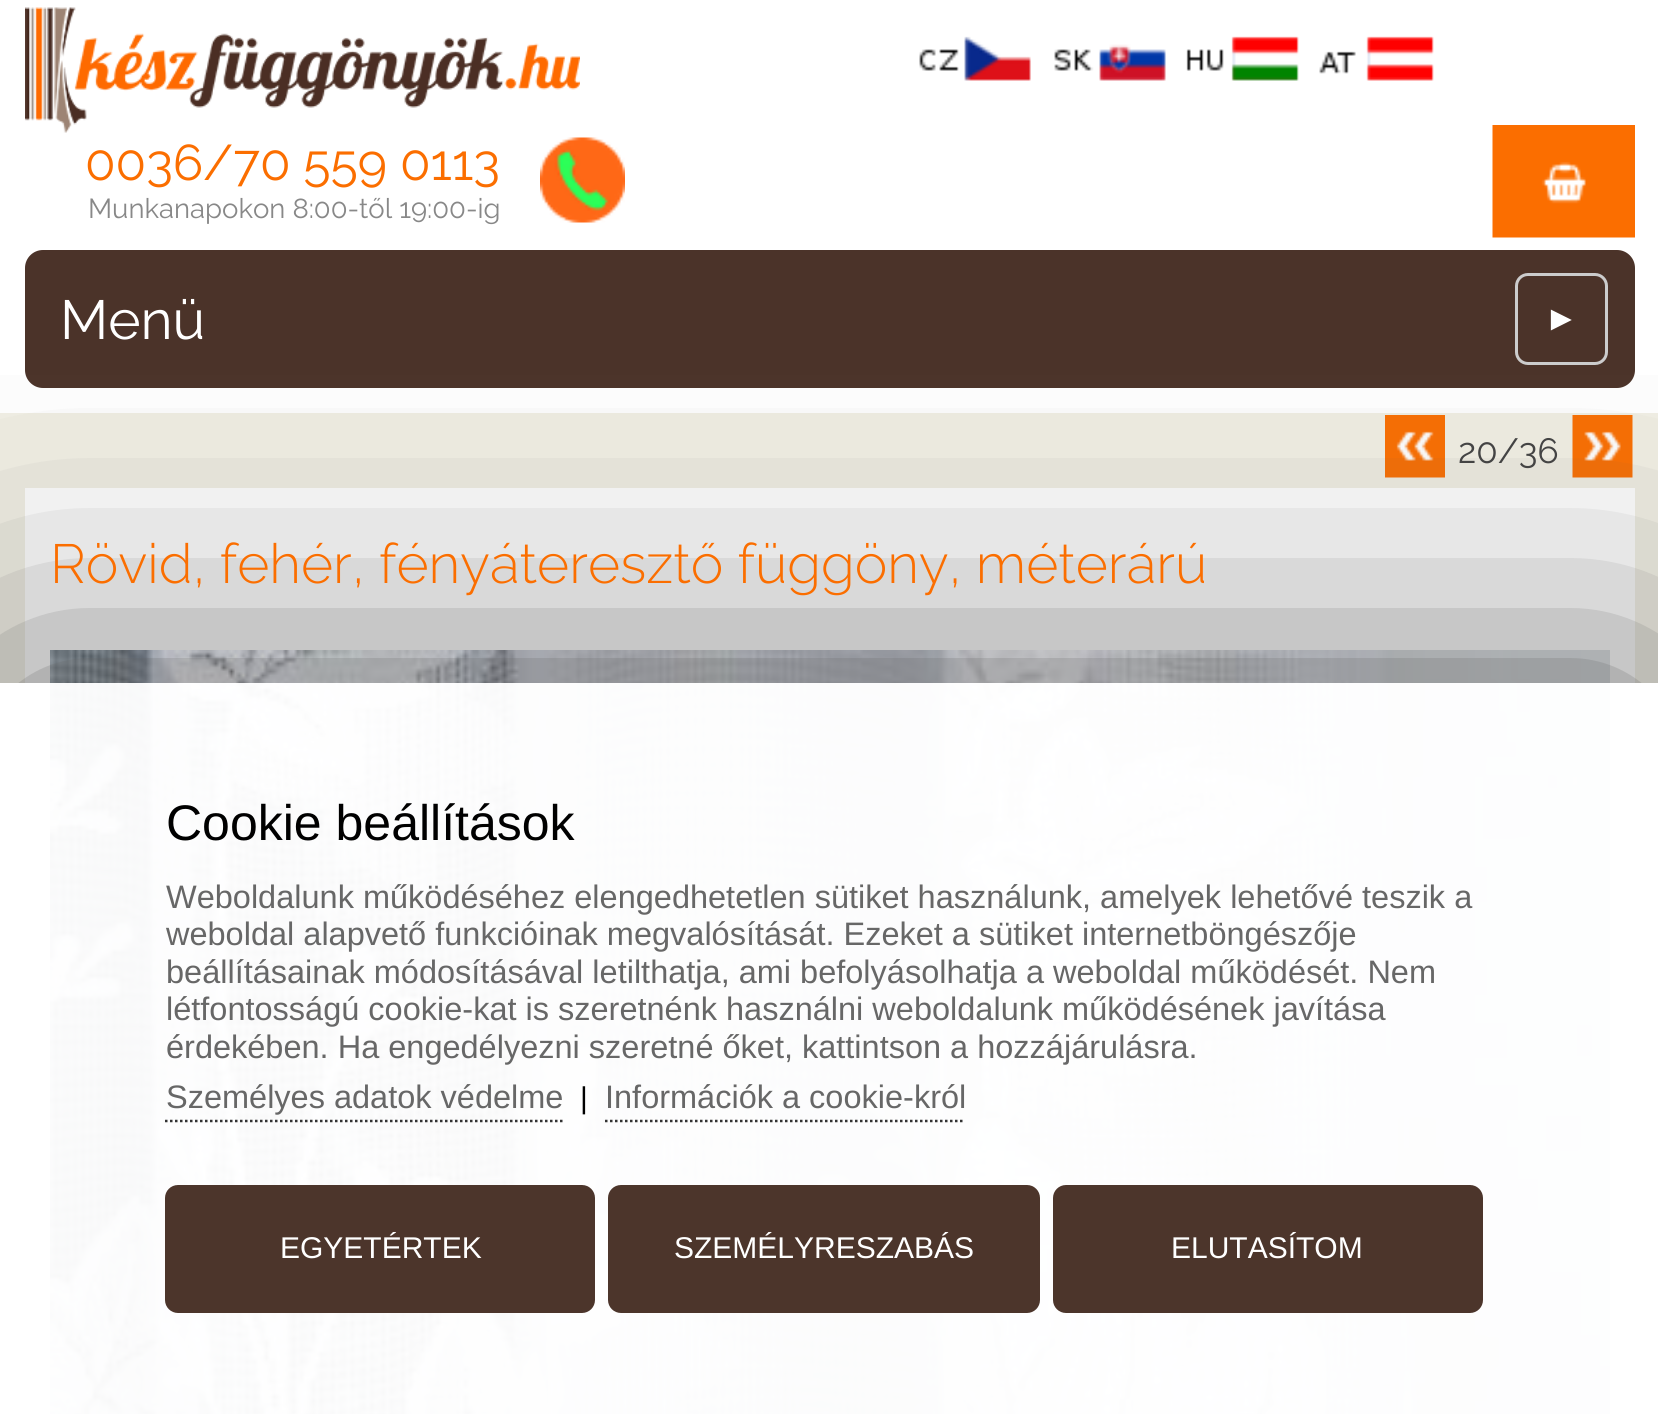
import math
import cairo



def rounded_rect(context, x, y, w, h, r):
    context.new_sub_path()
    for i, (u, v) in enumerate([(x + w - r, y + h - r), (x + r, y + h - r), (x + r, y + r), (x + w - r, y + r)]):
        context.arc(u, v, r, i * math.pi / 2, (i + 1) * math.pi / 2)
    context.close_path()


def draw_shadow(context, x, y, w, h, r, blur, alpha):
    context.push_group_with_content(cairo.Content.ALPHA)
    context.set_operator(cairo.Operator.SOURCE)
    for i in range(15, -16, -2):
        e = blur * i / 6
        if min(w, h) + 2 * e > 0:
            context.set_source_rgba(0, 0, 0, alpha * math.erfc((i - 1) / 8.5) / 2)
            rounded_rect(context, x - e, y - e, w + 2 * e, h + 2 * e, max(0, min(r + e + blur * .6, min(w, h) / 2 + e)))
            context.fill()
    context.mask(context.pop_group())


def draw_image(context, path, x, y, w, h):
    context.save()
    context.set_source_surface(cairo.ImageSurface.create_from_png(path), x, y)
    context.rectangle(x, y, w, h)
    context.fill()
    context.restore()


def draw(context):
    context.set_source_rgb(1, 1, 1)
    context.paint()
    draw_image(context, "images/1.png", 25, 7, 555, 126)
    draw_image(context, "images/2.png", 1492, 125, 143, 113)
    draw_image(context, "images/3.png", 919, 36, 112, 45)
    draw_image(context, "images/4.png", 1054, 44, 112, 37)
    draw_image(context, "images/5.png", 1186, 36, 113, 45)
    draw_image(context, "images/6.png", 1319, 36, 115, 45)
    draw_image(context, "images/7.png", 540, 137, 85, 86)
    context.set_source_rgb(75 / 255, 51 / 255, 41 / 255)
    rounded_rect(context, 25, 250, 1610, 138, 18)
    context.fill()
    rounded_rect(context, 1516.5, 274.5, 90, 89, 11.5)
    context.set_source_rgb(204 / 255, 204 / 255, 204 / 255)
    context.set_line_width(3)
    context.stroke()
    context.set_source_rgb(241 / 255, 239 / 255, 228 / 255)
    context.rectangle(0, 413, 1658, 270)
    context.fill()
    draw_image(context, "images/8.png", 1385, 415, 60, 63)
    draw_image(context, "images/9.png", 1572, 415, 61, 63)
    context.set_source_rgb(1, 1, 1)
    context.rectangle(25, 488, 1610, 195)
    context.fill()
    draw_image(context, "images/10.png", 50, 650, 1560, 764)
    context.save()
    context.rectangle(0, 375, 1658, 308)
    context.clip()
    context.set_source_rgb(102 / 255, 102 / 255, 102 / 255)
    draw_shadow(context, 0, 683, 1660, 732, 0, 150, 1)
    context.restore()
    context.new_path()
    context.move_to(165, 1121)
    context.line_to(562.5, 1121)
    context.set_source_rgb(51 / 255, 51 / 255, 51 / 255)
    context.set_line_width(2.5)
    context.set_dash([2.5, 2.5])
    context.stroke()
    context.new_path()
    context.move_to(605, 1121)
    context.line_to(965, 1121)
    context.stroke()
    context.set_source_rgb(76 / 255, 53 / 255, 43 / 255)
    rounded_rect(context, 165, 1185, 430, 128, 13)
    context.fill()
    rounded_rect(context, 608, 1185, 432, 128, 13)
    context.fill()
    rounded_rect(context, 1053, 1185, 430, 128, 13)
    context.fill()
    context.select_font_face("Raleway")
    context.set_font_size(50)
    context.set_source_rgb(251 / 255, 110 / 255, 0)
    context.move_to(85, 180)
    context.show_text("0036/70 559 0113")
    context.set_font_size(27.5)
    context.set_source_rgb(136 / 255, 136 / 255, 136 / 255)
    context.move_to(88, 218)
    context.show_text("Munkanapokon 8:00-től 19:00-ig")
    context.set_font_size(55)
    context.set_source_rgb(1, 1, 1)
    context.move_to(60, 339)
    context.show_text("Menü")
    context.select_font_face("Liberation Serif", cairo.FontSlant.NORMAL, cairo.FontWeight.BOLD)
    context.set_font_size(35)
    context.move_to(1544, 330)
    context.show_text("►")
    context.select_font_face("Raleway")
    context.set_source_rgb(68 / 255, 68 / 255, 68 / 255)
    context.move_to(1458, 463)
    context.show_text("20/36")
    context.select_font_face("Raleway Light")
    context.set_font_size(55)
    context.set_source_rgb(251 / 255, 110 / 255, 0)
    context.move_to(50, 583)
    context.show_text("Rövid, fehér, fényáteresztő függöny, méterárú")
    context.select_font_face("Liberation Sans")
    context.set_font_size(50)
    context.set_source_rgb(0, 0, 0)
    context.move_to(166, 840)
    context.show_text("Cookie beállítások")
    context.set_font_size(32.5)
    context.set_source_rgb(103 / 255, 103 / 255, 103 / 255)
    context.move_to(166, 908)
    context.show_text("Weboldalunk működéséhez elengedhetetlen sütiket használunk, amelyek lehetővé teszik a")
    context.move_to(166, 945)
    context.show_text("weboldal alapvető funkcióinak megvalósítását. Ezeket a sütiket internetböngészője")
    context.move_to(166, 983)
    context.show_text("beállításainak módosításával letilthatja, ami befolyásolhatja a weboldal működését. Nem")
    context.move_to(166, 1020)
    context.show_text("létfontosságú cookie-kat is szeretnénk használni weboldalunk működésének javítása")
    context.move_to(166, 1058)
    context.show_text("érdekében. Ha engedélyezni szeretné őket, kattintson a hozzájárulásra.")
    context.move_to(166, 1108)
    context.show_text("Személyes adatok védelme")
    context.set_font_size(30)
    context.set_source_rgb(0, 0, 0)
    context.move_to(580, 1108)
    context.show_text("|")
    context.set_font_size(32.5)
    context.set_source_rgb(103 / 255, 103 / 255, 103 / 255)
    context.move_to(605, 1108)
    context.show_text("Információk a cookie-król")
    context.set_font_size(30)
    context.set_source_rgb(1, 1, 1)
    context.move_to(280, 1258)
    context.show_text("EGYETÉRTEK")
    context.move_to(674, 1258)
    context.show_text("SZEMÉLYRESZABÁS")
    context.move_to(1171, 1258)
    context.show_text("ELUTASÍTOM")


surface = cairo.ImageSurface(cairo.Format.RGB24, 1658, 1414)
context = cairo.Context(surface)
options = cairo.FontOptions()
options.set_hint_metrics(cairo.HintMetrics.OFF)
options.set_hint_style(cairo.HintStyle.NONE)
context.set_font_options(options)
context.set_miter_limit(4)
draw(context)
surface.write_to_png("out.png")
